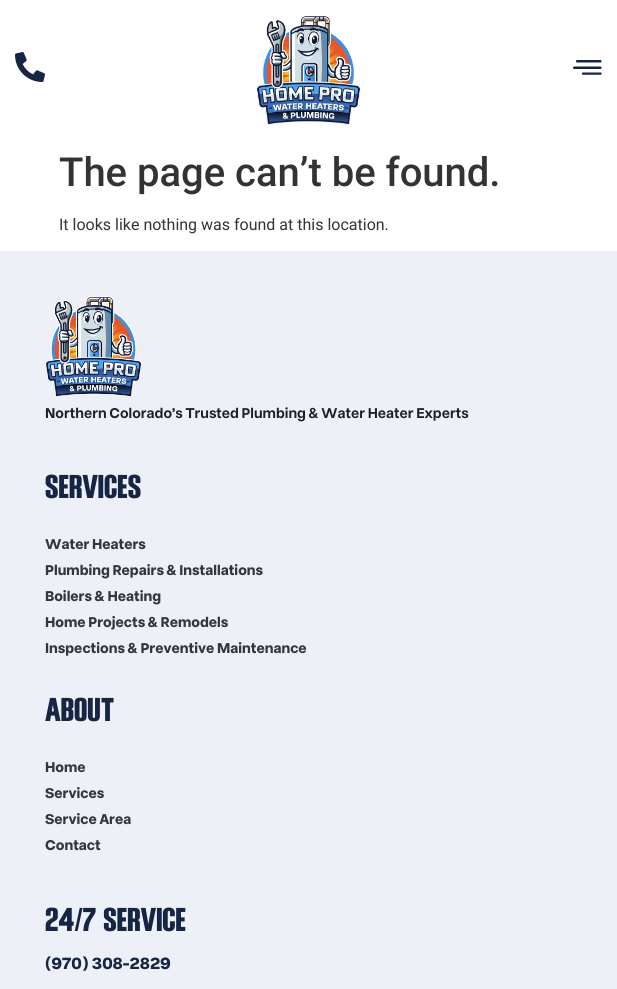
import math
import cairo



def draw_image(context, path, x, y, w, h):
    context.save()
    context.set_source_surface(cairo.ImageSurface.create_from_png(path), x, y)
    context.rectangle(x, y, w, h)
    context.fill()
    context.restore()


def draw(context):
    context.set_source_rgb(1, 1, 1)
    context.paint()
    draw_image(context, "images/1.png", 15, 52, 30, 30)
    draw_image(context, "images/2.png", 256, 16, 105, 109)
    draw_image(context, "images/3.png", 572, 60, 30, 15)
    context.set_source_rgb(237 / 255, 241 / 255, 247 / 255)
    context.rectangle(0, 251, 617, 738)
    context.fill()
    draw_image(context, "images/4.png", 45, 296, 97, 101)
    context.select_font_face("Roboto Medium")
    context.set_font_size(40)
    context.set_source_rgb(51 / 255, 51 / 255, 51 / 255)
    context.move_to(59, 186)
    context.show_text("The page can’t be found.")
    context.select_font_face("Roboto")
    context.set_font_size(16)
    context.move_to(59, 230)
    context.show_text("It looks like nothing was found at this location.")
    context.select_font_face("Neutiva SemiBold")
    context.set_font_size(14)
    context.set_source_rgb(27 / 255, 33 / 255, 44 / 255)
    context.move_to(45, 418)
    context.show_text("Northern Colorado’s Trusted Plumbing & Water Heater Experts")
    context.select_font_face("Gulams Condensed", cairo.FontSlant.NORMAL, cairo.FontWeight.BOLD)
    context.set_font_size(33)
    context.set_source_rgb(21 / 255, 37 / 255, 67 / 255)
    context.move_to(45, 498)
    context.show_text("SERVICES")
    context.select_font_face("Neutiva", cairo.FontSlant.NORMAL, cairo.FontWeight.BOLD)
    context.set_font_size(14)
    context.set_source_rgb(51 / 255, 55 / 255, 61 / 255)
    context.move_to(45, 549)
    context.show_text("Water Heaters")
    context.move_to(45, 575)
    context.show_text("Plumbing Repairs & Installations")
    context.move_to(45, 601)
    context.show_text("Boilers & Heating")
    context.move_to(45, 627)
    context.show_text("Home Projects & Remodels")
    context.move_to(45, 653)
    context.show_text("Inspections & Preventive Maintenance")
    context.select_font_face("Gulams Condensed", cairo.FontSlant.NORMAL, cairo.FontWeight.BOLD)
    context.set_font_size(33)
    context.set_source_rgb(21 / 255, 37 / 255, 67 / 255)
    context.move_to(45, 721)
    context.show_text("ABOUT")
    context.select_font_face("Neutiva", cairo.FontSlant.NORMAL, cairo.FontWeight.BOLD)
    context.set_font_size(14)
    context.set_source_rgb(51 / 255, 55 / 255, 61 / 255)
    context.move_to(45, 772)
    context.show_text("Home")
    context.move_to(45, 798)
    context.show_text("Services")
    context.move_to(45, 824)
    context.show_text("Service Area")
    context.move_to(45, 850)
    context.show_text("Contact")
    context.select_font_face("Gulams Condensed", cairo.FontSlant.NORMAL, cairo.FontWeight.BOLD)
    context.set_font_size(33)
    context.set_source_rgb(21 / 255, 37 / 255, 67 / 255)
    context.move_to(45, 931)
    context.show_text("24/7 SERVICE")
    context.select_font_face("Neutiva", cairo.FontSlant.NORMAL, cairo.FontWeight.BOLD)
    context.set_font_size(16)
    context.move_to(45, 969)
    context.show_text("(970) 308-2829")


surface = cairo.ImageSurface(cairo.Format.RGB24, 617, 989)
context = cairo.Context(surface)
options = cairo.FontOptions()
options.set_hint_metrics(cairo.HintMetrics.OFF)
options.set_hint_style(cairo.HintStyle.NONE)
context.set_font_options(options)
context.set_miter_limit(4)
draw(context)
surface.write_to_png("out.png")
